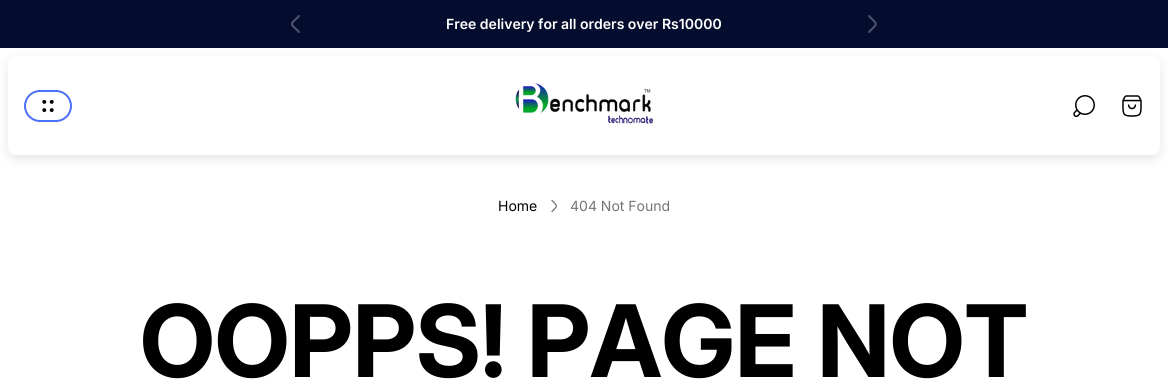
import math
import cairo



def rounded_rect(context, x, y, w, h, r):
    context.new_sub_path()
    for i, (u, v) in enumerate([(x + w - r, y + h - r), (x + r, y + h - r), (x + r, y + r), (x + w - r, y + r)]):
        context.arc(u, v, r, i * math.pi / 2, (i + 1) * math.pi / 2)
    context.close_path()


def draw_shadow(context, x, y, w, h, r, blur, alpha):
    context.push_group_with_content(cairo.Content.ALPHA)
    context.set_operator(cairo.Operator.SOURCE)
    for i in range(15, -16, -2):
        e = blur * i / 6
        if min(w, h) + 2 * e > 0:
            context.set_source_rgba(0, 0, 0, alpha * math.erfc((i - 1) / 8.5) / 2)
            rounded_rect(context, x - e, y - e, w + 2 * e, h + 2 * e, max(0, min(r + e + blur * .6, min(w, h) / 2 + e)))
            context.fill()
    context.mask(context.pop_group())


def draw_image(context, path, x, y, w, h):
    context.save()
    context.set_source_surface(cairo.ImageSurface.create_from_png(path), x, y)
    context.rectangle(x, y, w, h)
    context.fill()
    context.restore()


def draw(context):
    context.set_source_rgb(1, 1, 1)
    context.paint()
    context.set_source_rgb(5 / 255, 13 / 255, 47 / 255)
    context.rectangle(0, 0, 1168, 48)
    context.fill()
    context.new_path()
    context.move_to(299, 32)
    context.curve_to(289.5, 22.5, 289.5, 25.5, 299, 16)
    context.set_source_rgb(80 / 255, 86 / 255, 109 / 255)
    context.set_line_cap(cairo.LineCap.ROUND)
    context.set_line_join(cairo.LineJoin.ROUND)
    context.stroke()
    context.new_path()
    context.move_to(869, 32)
    context.curve_to(878, 22.5, 878, 25.5, 869, 16)
    context.stroke()
    context.set_source_rgb(0, 0, 0)
    draw_shadow(context, 8, 60, 1152, 99, 8, 5.5, 0.1)
    context.set_source_rgb(1, 1, 1)
    rounded_rect(context, 8, 56, 1152, 99, 8)
    context.fill()
    rounded_rect(context, 25, 91, 46, 30, 15)
    context.set_source_rgb(77 / 255, 113 / 255, 249 / 255)
    context.set_line_cap(cairo.LineCap.BUTT)
    context.set_line_join(cairo.LineJoin.MITER)
    context.stroke()
    draw_image(context, "images/1.png", 42, 99, 12, 14)
    draw_image(context, "images/2.png", 515, 83, 139, 41)
    draw_image(context, "images/3.png", 1073, 95, 22, 23)
    draw_image(context, "images/4.png", 1122, 95, 20, 22)
    context.new_path()
    context.move_to(552, 211.5)
    context.curve_to(558, 205, 558, 207, 552, 200.5)
    context.set_source_rgb(117 / 255, 117 / 255, 117 / 255)
    context.set_line_width(1.3)
    context.set_line_cap(cairo.LineCap.ROUND)
    context.set_line_join(cairo.LineJoin.ROUND)
    context.stroke()
    context.select_font_face("Inter SemiBold")
    context.set_font_size(14)
    context.set_source_rgb(1, 1, 1)
    context.move_to(446, 29)
    context.show_text("Free delivery for all orders over Rs10000")
    context.select_font_face("Inter")
    context.set_source_rgb(0, 0, 0)
    context.move_to(498, 211)
    context.show_text("Home")
    context.set_source_rgb(117 / 255, 117 / 255, 117 / 255)
    context.move_to(570, 211)
    context.show_text("404 Not Found")
    context.select_font_face("Inter", cairo.FontSlant.NORMAL, cairo.FontWeight.BOLD)
    context.set_font_size(100)
    context.set_source_rgb(0, 0, 0)
    context.move_to(140, 377)
    context.show_text("OOPPS! PAGE NOT")


surface = cairo.ImageSurface(cairo.Format.RGB24, 1168, 390)
context = cairo.Context(surface)
options = cairo.FontOptions()
options.set_hint_metrics(cairo.HintMetrics.OFF)
options.set_hint_style(cairo.HintStyle.NONE)
context.set_font_options(options)
context.set_miter_limit(4)
draw(context)
surface.write_to_png("out.png")
